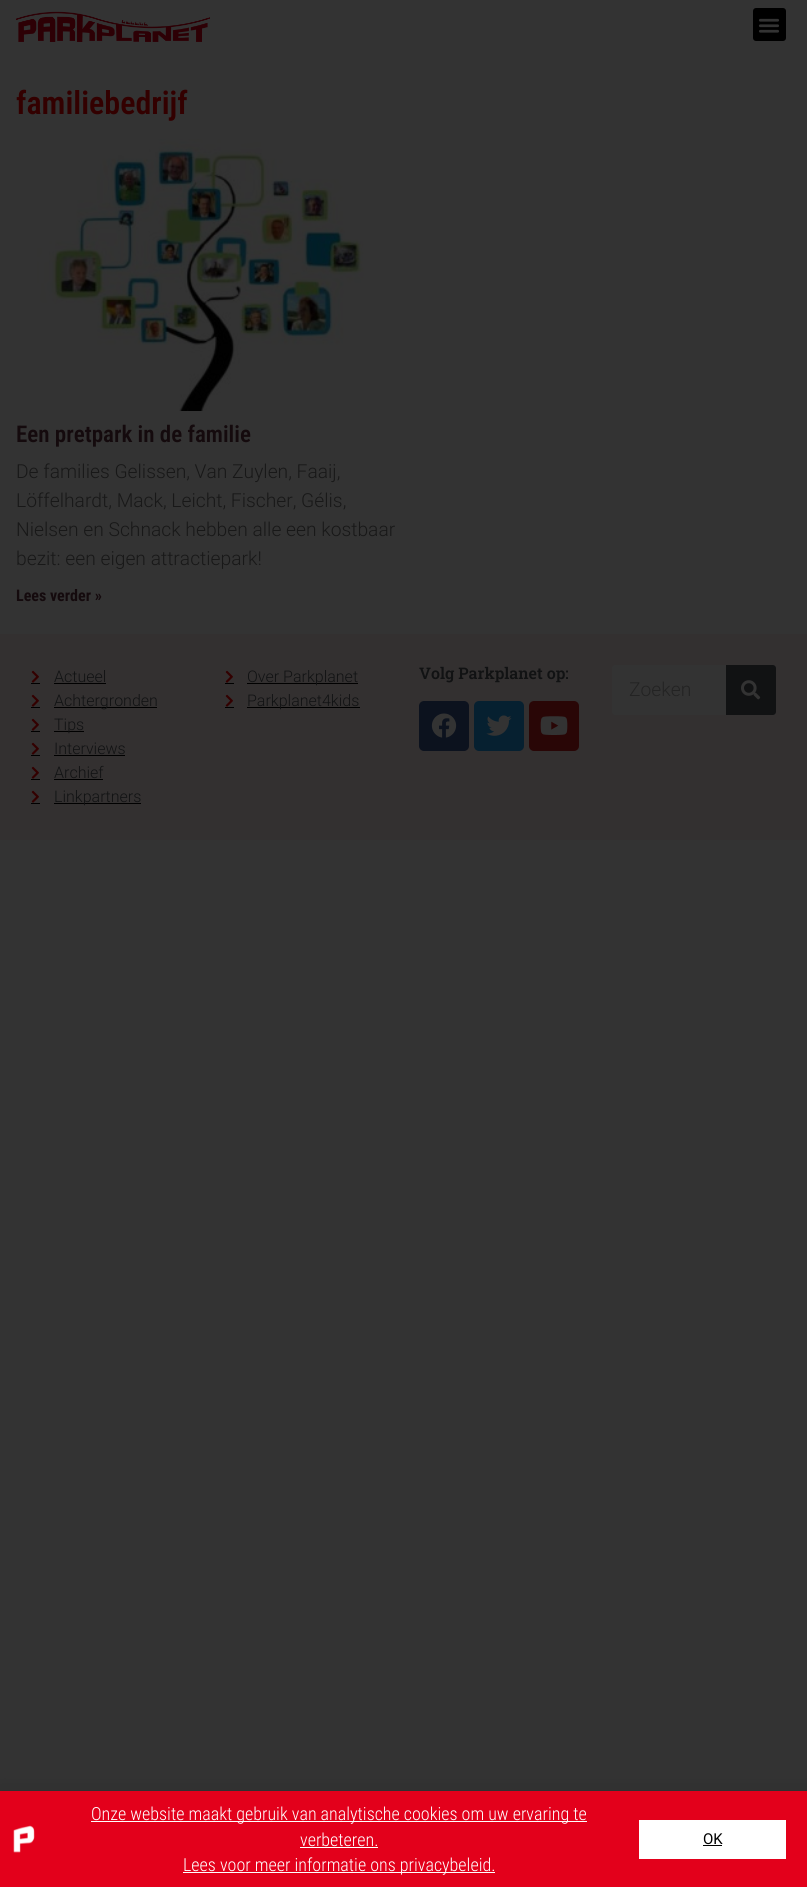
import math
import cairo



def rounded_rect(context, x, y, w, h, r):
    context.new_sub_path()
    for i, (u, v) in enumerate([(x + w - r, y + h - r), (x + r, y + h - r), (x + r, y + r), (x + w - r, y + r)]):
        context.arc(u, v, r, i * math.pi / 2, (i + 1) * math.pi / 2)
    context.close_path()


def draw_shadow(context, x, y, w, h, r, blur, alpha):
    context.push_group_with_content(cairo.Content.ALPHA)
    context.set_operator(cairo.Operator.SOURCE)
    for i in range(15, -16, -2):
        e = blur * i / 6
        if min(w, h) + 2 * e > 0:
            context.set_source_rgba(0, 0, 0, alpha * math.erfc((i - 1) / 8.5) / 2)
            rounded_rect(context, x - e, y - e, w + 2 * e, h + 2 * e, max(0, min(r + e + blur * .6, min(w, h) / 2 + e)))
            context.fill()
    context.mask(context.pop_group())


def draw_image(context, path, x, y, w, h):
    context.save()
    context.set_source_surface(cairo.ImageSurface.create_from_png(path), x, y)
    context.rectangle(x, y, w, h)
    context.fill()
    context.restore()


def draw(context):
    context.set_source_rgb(51 / 255, 51 / 255, 51 / 255)
    context.paint()
    draw_image(context, "images/1.png", 16, 11, 194, 31)
    context.set_source_rgb(0, 0, 0)
    rounded_rect(context, 753, 8, 33, 33, 3)
    context.fill()
    draw_image(context, "images/2.png", 758, 18, 22, 15)
    draw_image(context, "images/3.png", 37, 139, 327, 272)
    context.set_source_rgb(51 / 255, 48 / 255, 48 / 255)
    context.rectangle(0, 634, 807, 206)
    context.fill()
    draw_image(context, "images/4.png", 31, 670, 8, 13)
    context.set_source_rgb(0, 0, 0)
    context.rectangle(31, 683, 9, 1)
    context.fill()
    context.rectangle(54, 683, 52, 1)
    context.fill()
    draw_image(context, "images/4.png", 31, 694, 8, 13)
    context.rectangle(31, 707, 9, 1)
    context.fill()
    context.rectangle(54, 707, 103, 1)
    context.fill()
    draw_image(context, "images/4.png", 31, 718, 8, 13)
    context.rectangle(31, 731, 9, 1)
    context.fill()
    context.rectangle(54, 731, 30, 1)
    context.fill()
    draw_image(context, "images/4.png", 31, 742, 8, 13)
    context.rectangle(31, 755, 9, 1)
    context.fill()
    context.rectangle(54, 755, 71, 1)
    context.fill()
    draw_image(context, "images/4.png", 31, 766, 8, 13)
    context.rectangle(31, 779, 9, 1)
    context.fill()
    context.rectangle(54, 779, 49, 1)
    context.fill()
    draw_image(context, "images/4.png", 31, 790, 8, 13)
    context.rectangle(31, 803, 9, 1)
    context.fill()
    context.rectangle(54, 803, 87, 1)
    context.fill()
    draw_image(context, "images/4.png", 225, 670, 8, 13)
    context.rectangle(225, 683, 9, 1)
    context.fill()
    context.rectangle(247, 683, 111, 1)
    context.fill()
    draw_image(context, "images/4.png", 225, 694, 8, 13)
    context.rectangle(225, 707, 9, 1)
    context.fill()
    context.rectangle(247, 707, 113, 1)
    context.fill()
    context.set_source_rgb(12 / 255, 18 / 255, 30 / 255)
    rounded_rect(context, 419, 701, 50, 50, 5)
    context.fill()
    draw_image(context, "images/5.png", 431, 713, 26, 25)
    context.set_source_rgb(6 / 255, 32 / 255, 48 / 255)
    rounded_rect(context, 474, 701, 50, 50, 5)
    context.fill()
    draw_image(context, "images/6.png", 486, 715, 26, 21)
    context.set_source_rgb(41 / 255, 6 / 255, 6 / 255)
    rounded_rect(context, 529, 701, 50, 50, 5)
    context.fill()
    draw_image(context, "images/7.png", 540, 716, 28, 19)
    context.set_source_rgb(51 / 255, 51 / 255, 51 / 255)
    rounded_rect(context, 612, 665, 164, 50, 3)
    context.fill()
    context.set_source_rgb(17 / 255, 18 / 255, 19 / 255)
    context.new_path()
    context.move_to(726, 665)
    context.line_to(773, 665)
    context.curve_to(774.5, 665, 776, 666.5, 776, 668)
    context.line_to(776, 712)
    context.curve_to(776, 713.5, 774.5, 715, 773, 715)
    context.line_to(726, 715)
    context.close_path()
    context.fill()
    draw_image(context, "images/8.png", 741, 680, 20, 20)
    context.set_source_rgb(0, 0, 0)
    draw_shadow(context, -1, 1796, 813, 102, 0, 11.5, 0.2)
    context.set_source_rgb(227 / 255, 0, 27 / 255)
    context.rectangle(0, 1791, 807, 96)
    context.fill()
    draw_image(context, "images/9.png", 13, 1825, 22, 28)
    context.set_source_rgb(1, 1, 1)
    context.rectangle(91, 1821, 496, 1)
    context.fill()
    context.rectangle(300, 1847, 78, 1)
    context.fill()
    context.rectangle(183, 1872, 312, 1)
    context.fill()
    context.rectangle(639, 1820, 147, 39)
    context.fill()
    context.set_source_rgb(0, 0, 0)
    context.rectangle(703, 1845, 19, 1)
    context.fill()
    context.select_font_face("Roboto Condensed SemiBold")
    context.set_font_size(32)
    context.set_source_rgb(51 / 255, 0, 0)
    context.move_to(16, 114)
    context.show_text("familiebedrijf")
    context.set_font_size(23)
    context.set_source_rgb(20 / 255, 10 / 255, 13 / 255)
    context.move_to(16, 442)
    context.show_text("Een pretpark in de familie")
    context.select_font_face("Roboto Light")
    context.set_font_size(19.25)
    context.set_source_rgb(24 / 255, 24 / 255, 24 / 255)
    context.move_to(16, 478)
    context.show_text("De families Gelissen, Van Zuylen, Faaij,")
    context.move_to(16, 507)
    context.show_text("Löffelhardt, Mack, Leicht, Fischer, Gélis,")
    context.move_to(16, 536)
    context.show_text("Nielsen en Schnack hebben alle een kostbaar")
    context.move_to(16, 565)
    context.show_text("bezit: een eigen attractiepark!")
    context.select_font_face("Roboto Condensed", cairo.FontSlant.NORMAL, cairo.FontWeight.BOLD)
    context.set_font_size(16)
    context.set_source_rgb(20 / 255, 10 / 255, 13 / 255)
    context.move_to(16, 601)
    context.show_text("Lees verder »")
    context.select_font_face("Roboto Light")
    context.set_source_rgb(17 / 255, 18 / 255, 19 / 255)
    context.move_to(54, 682)
    context.show_text("Actueel")
    context.move_to(54, 706)
    context.show_text("Achtergronden")
    context.move_to(54, 730)
    context.show_text("Tips")
    context.move_to(54, 754)
    context.show_text("Interviews")
    context.move_to(54, 778)
    context.show_text("Archief")
    context.move_to(54, 802)
    context.show_text("Linkpartners")
    context.move_to(247, 682)
    context.show_text("Over Parkplanet")
    context.move_to(247, 706)
    context.show_text("Parkplanet4kids")
    context.select_font_face("Roboto Slab SemiBold")
    context.move_to(419, 679)
    context.show_text("Volg Parkplanet op:")
    context.select_font_face("Roboto Light")
    context.set_font_size(19.25)
    context.set_source_rgb(35 / 255, 35 / 255, 35 / 255)
    context.move_to(629, 696)
    context.show_text("Zoeken")
    context.select_font_face("Roboto Condensed Light")
    context.set_font_size(18)
    context.set_source_rgb(1, 1, 1)
    context.move_to(91, 1820)
    context.show_text("Onze website maakt gebruik van analytische cookies om uw ervaring te")
    context.move_to(300, 1846)
    context.show_text("verbeteren.")
    context.move_to(183, 1871)
    context.show_text("Lees voor meer informatie ons privacybeleid.")
    context.select_font_face("Roboto")
    context.set_font_size(15)
    context.set_source_rgb(0, 0, 0)
    context.move_to(703, 1844)
    context.show_text("OK")


surface = cairo.ImageSurface(cairo.Format.RGB24, 807, 1887)
context = cairo.Context(surface)
options = cairo.FontOptions()
options.set_hint_metrics(cairo.HintMetrics.OFF)
options.set_hint_style(cairo.HintStyle.NONE)
context.set_font_options(options)
context.set_miter_limit(4)
draw(context)
surface.write_to_png("out.png")
